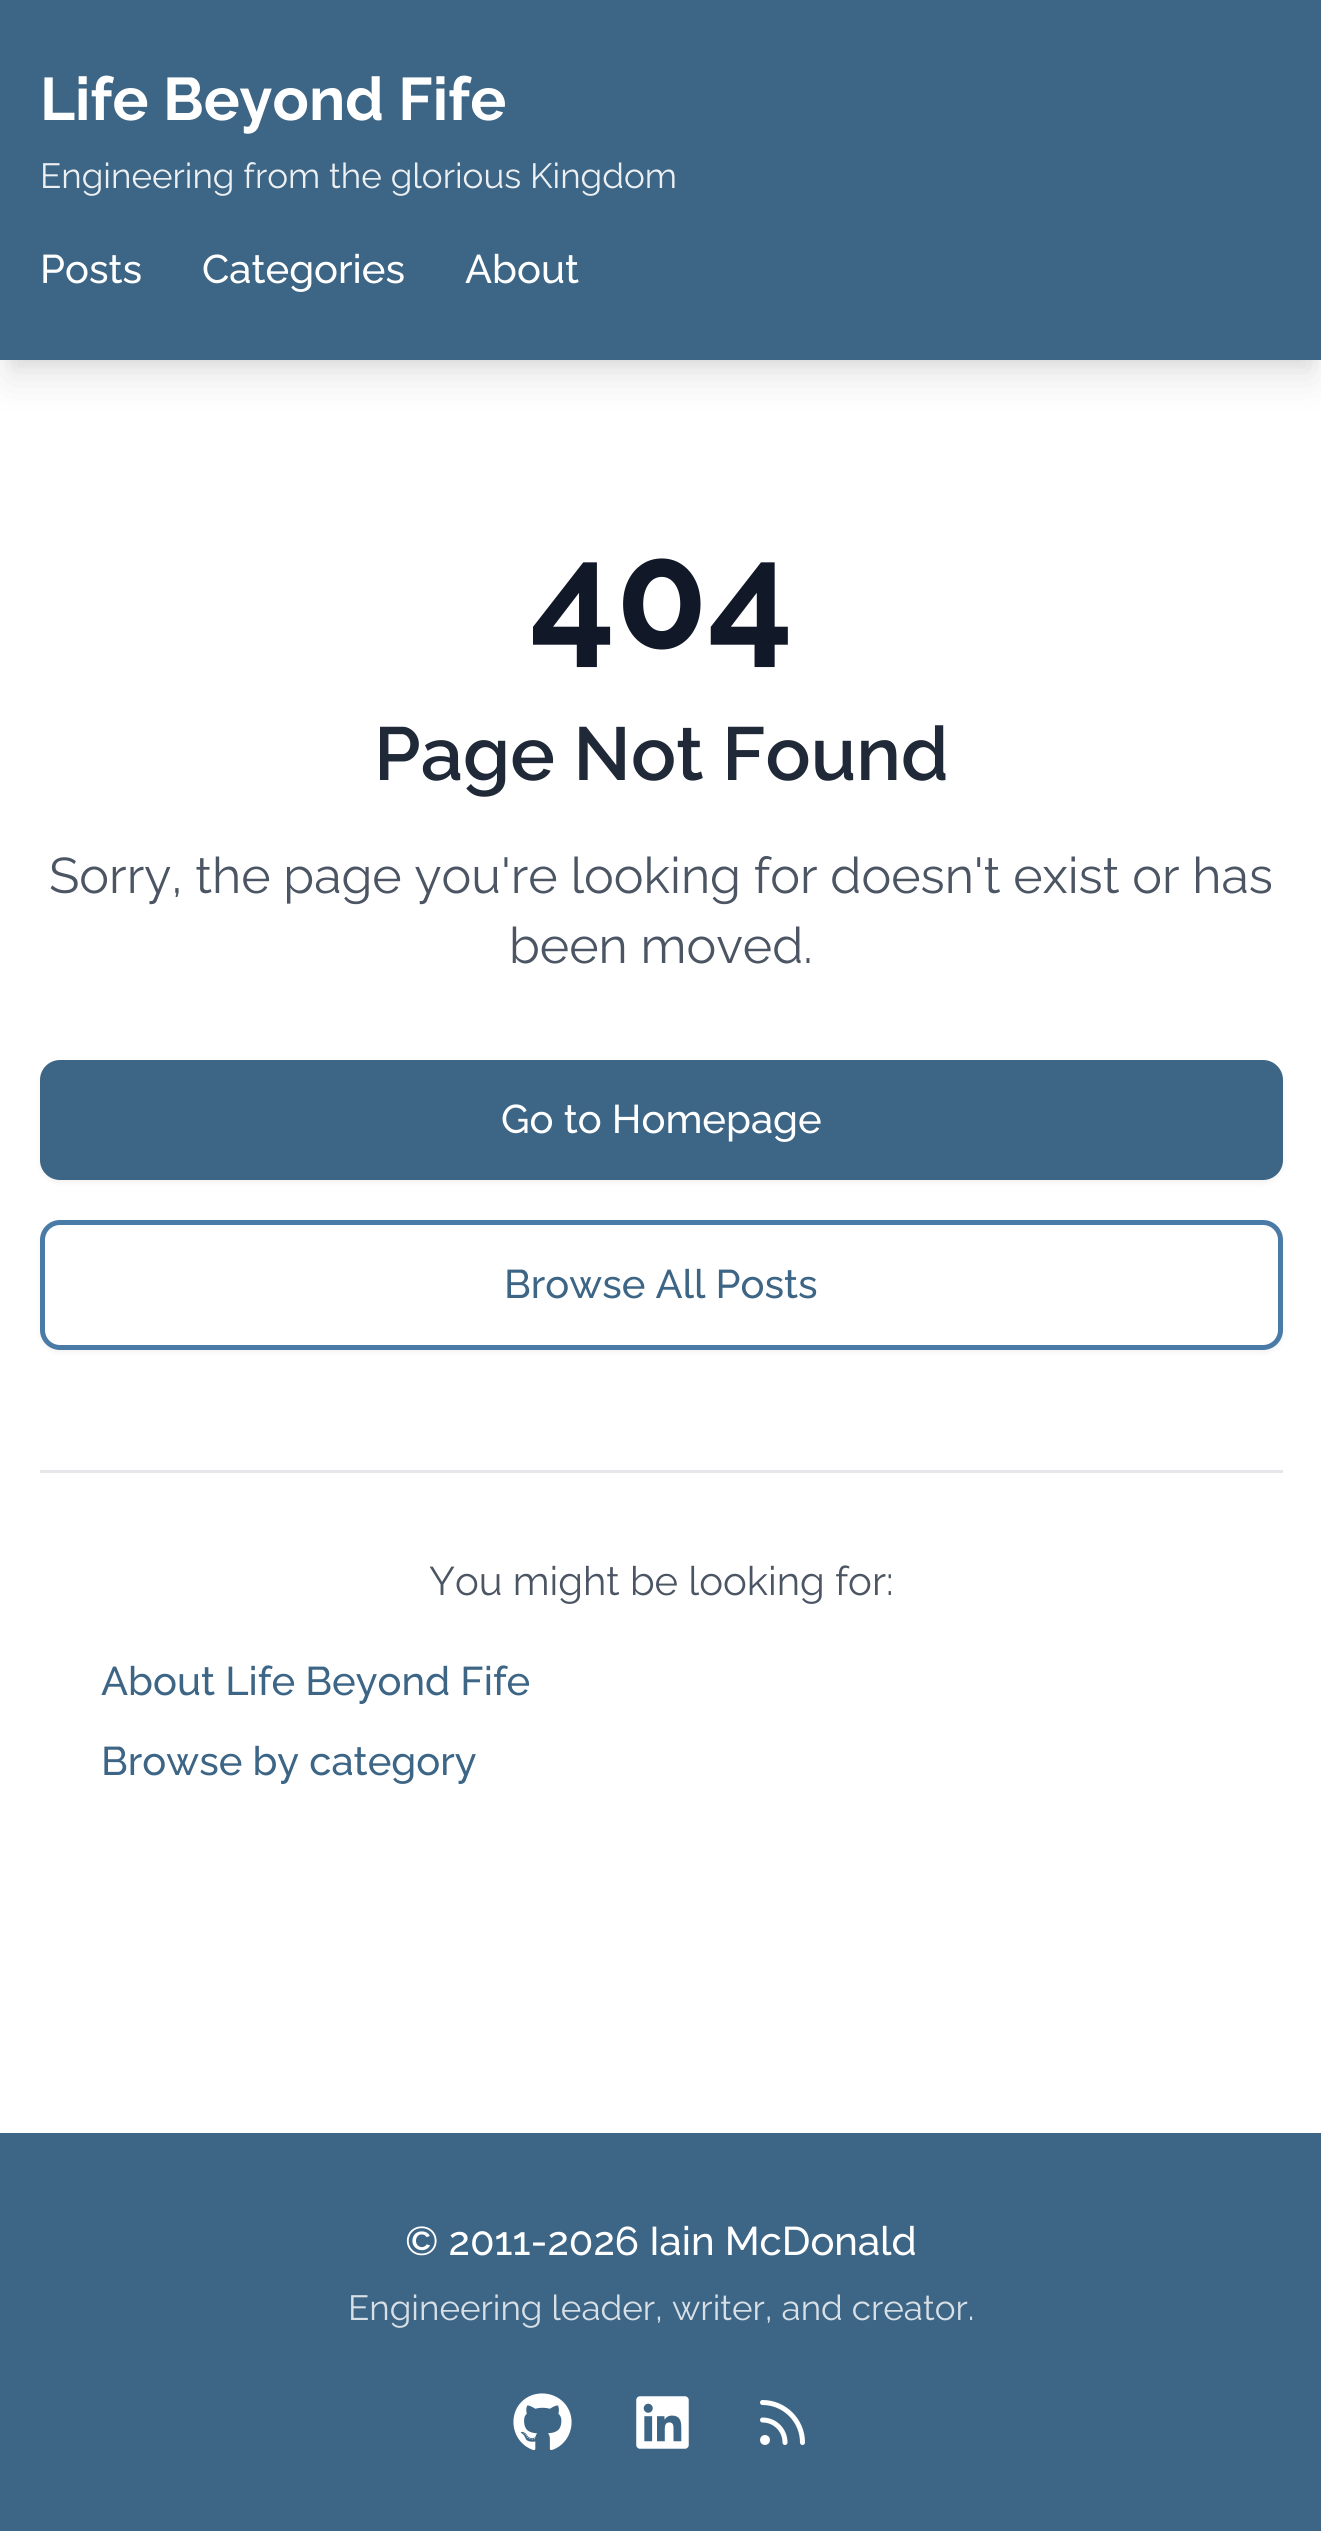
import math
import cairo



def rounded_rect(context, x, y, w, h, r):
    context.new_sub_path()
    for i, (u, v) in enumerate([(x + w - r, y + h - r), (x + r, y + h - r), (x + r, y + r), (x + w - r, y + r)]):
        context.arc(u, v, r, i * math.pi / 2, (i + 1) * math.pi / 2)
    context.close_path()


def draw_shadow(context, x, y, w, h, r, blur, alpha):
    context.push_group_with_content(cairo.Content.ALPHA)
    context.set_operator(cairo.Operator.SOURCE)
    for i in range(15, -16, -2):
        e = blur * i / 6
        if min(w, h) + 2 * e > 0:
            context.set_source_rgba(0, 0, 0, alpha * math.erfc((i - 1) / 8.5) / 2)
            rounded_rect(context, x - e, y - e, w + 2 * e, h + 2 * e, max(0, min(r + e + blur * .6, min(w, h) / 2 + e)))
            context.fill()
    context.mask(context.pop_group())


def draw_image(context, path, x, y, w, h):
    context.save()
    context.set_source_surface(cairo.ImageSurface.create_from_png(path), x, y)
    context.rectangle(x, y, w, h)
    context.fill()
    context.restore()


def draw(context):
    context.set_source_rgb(1, 1, 1)
    context.paint()
    context.set_source_rgb(0, 0, 0)
    draw_shadow(context, 10, 20, 1303, 340, 0, 7.5, 0.1)
    draw_shadow(context, 8, 33, 1307, 345, 0, 19, 0.1)
    context.set_source_rgb(61 / 255, 101 / 255, 133 / 255)
    context.rectangle(0, 0, 1321, 360)
    context.fill()
    context.set_source_rgb(0, 0, 0)
    draw_shadow(context, 40, 1063, 1243, 120, 20, 2.5, 0.05)
    context.set_source_rgb(61 / 255, 101 / 255, 133 / 255)
    rounded_rect(context, 40, 1060, 1243, 120, 20)
    context.fill()
    context.set_source_rgb(0, 0, 0)
    draw_shadow(context, 40, 1223, 1243, 130, 20, 2.5, 0.05)
    context.set_source_rgb(1, 1, 1)
    rounded_rect(context, 42.5, 1222.5, 1238, 125, 17.5)
    context.fill_preserve()
    context.set_source_rgb(74 / 255, 123 / 255, 167 / 255)
    context.set_line_width(5)
    context.stroke()
    context.set_source_rgb(229 / 255, 231 / 255, 235 / 255)
    context.rectangle(40, 1470, 1243, 3)
    context.fill()
    context.set_source_rgb(61 / 255, 101 / 255, 133 / 255)
    context.rectangle(0, 2133, 1321, 398)
    context.fill()
    draw_image(context, "images/1.png", 513, 2393, 59, 58)
    draw_image(context, "images/2.png", 636, 2396, 53, 53)
    context.new_path()
    context.move_to(762.5, 2420)
    context.curve_to(775, 2420, 785, 2430, 785, 2442.5)
    context.move_to(762.5, 2402.5)
    context.curve_to(784.5, 2402.5, 802.5, 2420.5, 802.5, 2442.5)
    context.set_source_rgb(1, 1, 1)
    context.set_line_cap(cairo.LineCap.ROUND)
    context.set_line_join(cairo.LineJoin.ROUND)
    context.stroke()
    context.arc(765, 2440, 2.5, 0, 2 * math.pi)
    context.set_line_cap(cairo.LineCap.BUTT)
    context.set_line_join(cairo.LineJoin.MITER)
    context.stroke()
    context.select_font_face("Raleway", cairo.FontSlant.NORMAL, cairo.FontWeight.BOLD)
    context.set_font_size(60)
    context.move_to(40, 120)
    context.show_text("Life Beyond Fife")
    context.select_font_face("Raleway")
    context.set_font_size(35)
    context.set_source_rgb(236 / 255, 240 / 255, 243 / 255)
    context.move_to(40, 188)
    context.show_text("Engineering from the glorious Kingdom")
    context.select_font_face("Raleway Medium")
    context.set_font_size(40)
    context.set_source_rgb(1, 1, 1)
    context.move_to(40, 283)
    context.show_text("Posts")
    context.move_to(202, 283)
    context.show_text("Categories")
    context.move_to(465, 283)
    context.show_text("About")
    context.select_font_face("Raleway", cairo.FontSlant.NORMAL, cairo.FontWeight.BOLD)
    context.set_font_size(150)
    context.set_source_rgb(17 / 255, 24 / 255, 39 / 255)
    context.move_to(530, 648)
    context.show_text("404")
    context.select_font_face("Raleway SemiBold")
    context.set_font_size(75)
    context.set_source_rgb(31 / 255, 41 / 255, 55 / 255)
    context.move_to(374, 780)
    context.show_text("Page Not Found")
    context.select_font_face("Raleway")
    context.set_font_size(50)
    context.set_source_rgb(75 / 255, 85 / 255, 99 / 255)
    context.move_to(49, 893)
    context.show_text("Sorry, the page you're looking for doesn't exist or has")
    context.move_to(509, 963)
    context.show_text("been moved.")
    context.select_font_face("Raleway Medium")
    context.set_font_size(40)
    context.set_source_rgb(1, 1, 1)
    context.move_to(501, 1133)
    context.show_text("Go to Homepage")
    context.set_source_rgb(61 / 255, 101 / 255, 133 / 255)
    context.move_to(504, 1298)
    context.show_text("Browse All Posts")
    context.select_font_face("Raleway")
    context.set_source_rgb(75 / 255, 85 / 255, 99 / 255)
    context.move_to(429, 1595)
    context.show_text("You might be looking for:")
    context.select_font_face("Raleway Medium")
    context.set_source_rgb(61 / 255, 101 / 255, 133 / 255)
    context.move_to(101, 1695)
    context.show_text("About Life Beyond Fife")
    context.move_to(101, 1775)
    context.show_text("Browse by category")
    context.set_source_rgb(1, 1, 1)
    context.move_to(405, 2255)
    context.show_text("© 2011-2026 Iain McDonald")
    context.select_font_face("Raleway")
    context.set_font_size(35)
    context.set_source_rgb(216 / 255, 224 / 255, 231 / 255)
    context.move_to(348, 2320)
    context.show_text("Engineering leader, writer, and creator.")


surface = cairo.ImageSurface(cairo.Format.RGB24, 1321, 2531)
context = cairo.Context(surface)
options = cairo.FontOptions()
options.set_hint_metrics(cairo.HintMetrics.OFF)
options.set_hint_style(cairo.HintStyle.NONE)
context.set_font_options(options)
context.set_miter_limit(4)
draw(context)
surface.write_to_png("out.png")
